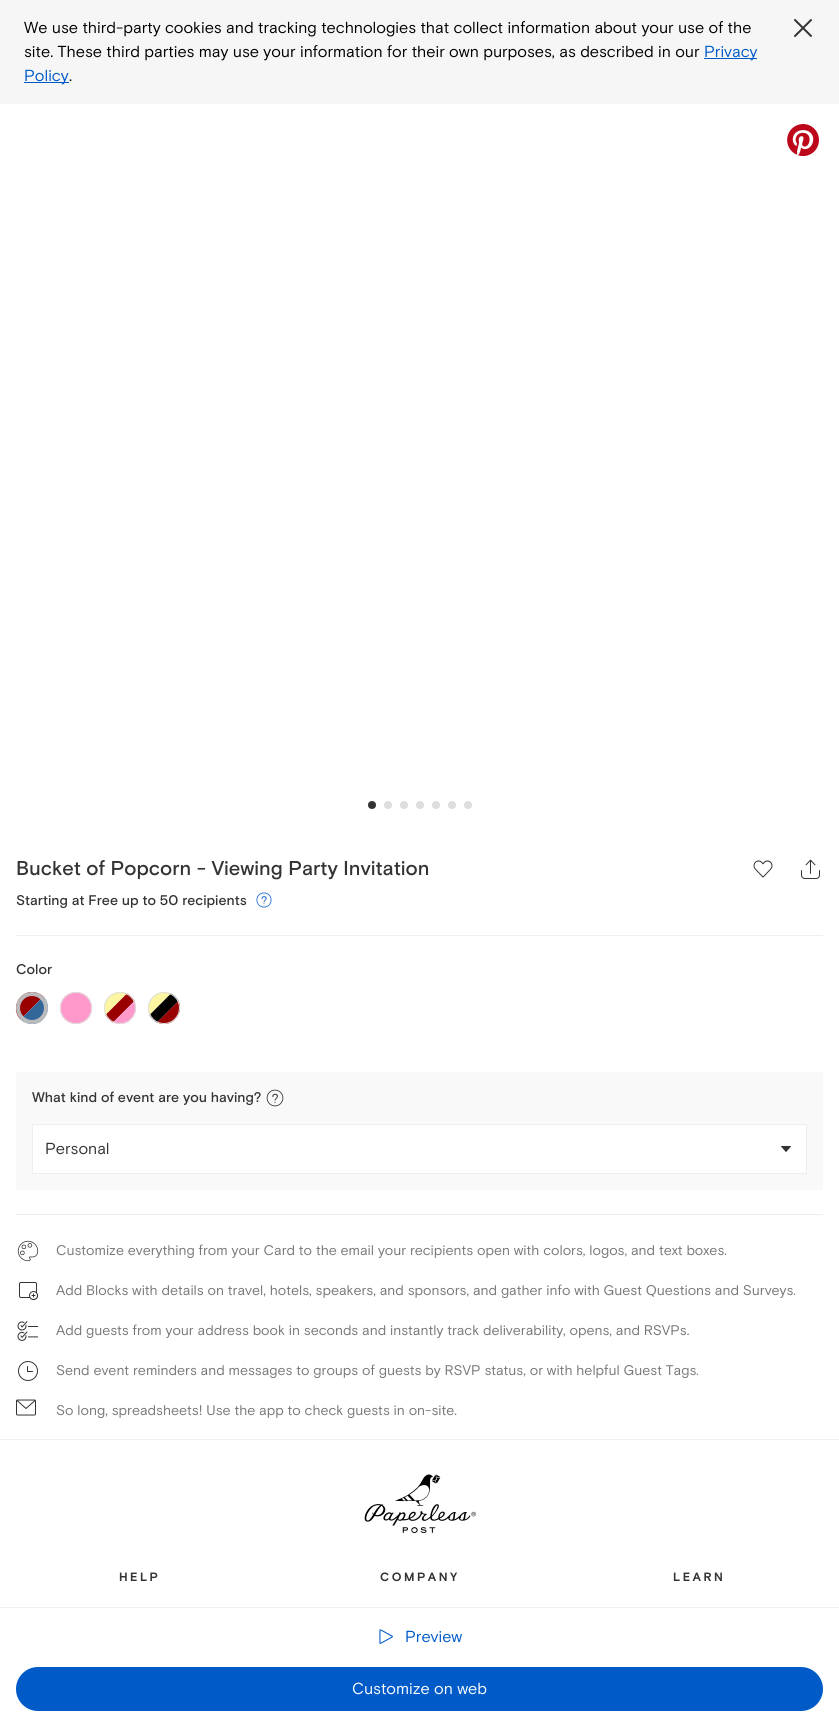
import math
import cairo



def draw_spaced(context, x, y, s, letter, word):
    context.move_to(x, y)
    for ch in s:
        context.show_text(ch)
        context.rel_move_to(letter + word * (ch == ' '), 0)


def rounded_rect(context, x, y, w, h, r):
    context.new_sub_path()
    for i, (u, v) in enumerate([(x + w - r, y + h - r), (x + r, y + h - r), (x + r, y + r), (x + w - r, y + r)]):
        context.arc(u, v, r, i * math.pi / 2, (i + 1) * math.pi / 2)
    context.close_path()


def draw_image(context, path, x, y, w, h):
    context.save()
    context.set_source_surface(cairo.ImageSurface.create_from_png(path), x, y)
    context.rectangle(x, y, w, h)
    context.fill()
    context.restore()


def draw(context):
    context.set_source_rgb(1, 1, 1)
    context.paint()
    context.set_source_rgb(246 / 255, 246 / 255, 246 / 255)
    context.rectangle(0, 0, 839, 104)
    context.fill()
    context.set_source_rgb(0, 90 / 255, 200 / 255)
    context.rectangle(704, 58, 53, 1)
    context.fill()
    context.rectangle(24, 82, 45, 1)
    context.fill()
    draw_image(context, "images/1.png", 794, 19, 18, 18)
    draw_image(context, "images/2.png", 787, 124, 32, 32)
    context.set_source_rgb(51 / 255, 51 / 255, 51 / 255)
    context.arc(372, 805, 4, 0, 2 * math.pi)
    context.fill()
    context.set_source_rgb(221 / 255, 221 / 255, 221 / 255)
    context.arc(388, 805, 4, 0, 2 * math.pi)
    context.fill()
    context.arc(404, 805, 4, 0, 2 * math.pi)
    context.fill()
    context.arc(420, 805, 4, 0, 2 * math.pi)
    context.fill()
    context.arc(436, 805, 4, 0, 2 * math.pi)
    context.fill()
    context.arc(452, 805, 4, 0, 2 * math.pi)
    context.fill()
    context.arc(468, 805, 4, 0, 2 * math.pi)
    context.fill()
    draw_image(context, "images/3.png", 753, 860, 20, 18)
    draw_image(context, "images/4.png", 801, 859, 19, 20)
    draw_image(context, "images/5.png", 256, 892, 16, 16)
    context.set_source_rgb(238 / 255, 238 / 255, 238 / 255)
    context.rectangle(16, 935, 807, 1)
    context.fill()
    context.set_source_rgb(153 / 255, 0, 0)
    context.new_path()
    context.move_to(32, 992)
    context.curve_to(36.5, 992, 40.5, 994, 43.5, 996.5)
    context.line_to(20.5, 1019.5)
    context.curve_to(10.5, 1009.5, 18, 992, 32, 992)
    context.close_path()
    context.fill()
    context.set_source_rgb(51 / 255, 102 / 255, 153 / 255)
    context.new_path()
    context.move_to(42, 1020.5)
    context.curve_to(36, 1025.5, 26.5, 1025, 20.5, 1019.5)
    context.line_to(43.5, 996.5)
    context.curve_to(48.5, 1002, 49.5, 1010.5, 45, 1017)
    context.close_path()
    context.fill()
    context.arc(32, 1008, 14, 0, 2 * math.pi)
    context.set_source_rgb(187 / 255, 187 / 255, 187 / 255)
    context.set_line_width(4)
    context.stroke()
    context.set_source_rgb(1, 153 / 255, 204 / 255)
    context.new_path()
    context.move_to(76, 992)
    context.curve_to(67, 992, 60, 999, 60, 1008)
    context.curve_to(60, 1017, 67, 1024, 76, 1024)
    context.curve_to(85, 1024, 92, 1017, 92, 1008)
    context.curve_to(92, 999, 85, 992, 76, 992)
    context.close_path()
    context.fill()
    context.arc(76, 1008, 15.5, 0, 2 * math.pi)
    context.set_source_rgb(221 / 255, 221 / 255, 221 / 255)
    context.set_line_width(1)
    context.stroke()
    context.set_source_rgb(252 / 255, 245 / 255, 162 / 255)
    context.new_path()
    context.move_to(120, 992)
    context.curve_to(122.5, 992, 125, 992.5, 127, 993.5)
    context.line_to(105.5, 1015)
    context.curve_to(100.5, 1004.5, 108.5, 992, 120, 992)
    context.close_path()
    context.fill()
    context.set_source_rgb(153 / 255, 0, 0)
    context.new_path()
    context.move_to(107.5, 1018)
    context.line_to(105.5, 1015)
    context.line_to(127, 993.5)
    context.curve_to(130, 995, 133, 998, 134.5, 1001)
    context.line_to(113, 1022.5)
    context.curve_to(111, 1021.5, 109.5, 1020, 107.5, 1018)
    context.close_path()
    context.fill()
    context.set_source_rgb(1, 153 / 255, 204 / 255)
    context.new_path()
    context.move_to(130, 1020.5)
    context.curve_to(125.5, 1024.5, 118.5, 1025, 113, 1022.5)
    context.line_to(134.5, 1001)
    context.curve_to(137, 1006, 136.5, 1012.5, 133, 1017)
    context.close_path()
    context.fill()
    context.arc(120, 1008, 15.5, 0, 2 * math.pi)
    context.set_source_rgb(221 / 255, 221 / 255, 221 / 255)
    context.stroke()
    context.set_source_rgb(252 / 255, 245 / 255, 162 / 255)
    context.new_path()
    context.move_to(164, 992)
    context.curve_to(166.5, 992, 169, 992.5, 171, 993.5)
    context.line_to(149.5, 1015)
    context.curve_to(144.5, 1004.5, 152.5, 992, 164, 992)
    context.close_path()
    context.fill()
    context.set_source_rgb(0, 0, 0)
    context.new_path()
    context.move_to(151.5, 1018)
    context.line_to(149.5, 1015)
    context.line_to(171, 993.5)
    context.curve_to(174, 995, 177, 998, 178.5, 1001)
    context.line_to(157, 1022.5)
    context.curve_to(155, 1021.5, 153.5, 1020, 151.5, 1018)
    context.close_path()
    context.fill()
    context.set_source_rgb(153 / 255, 0, 0)
    context.new_path()
    context.move_to(174, 1020.5)
    context.curve_to(169.5, 1024.5, 162.5, 1025, 157, 1022.5)
    context.line_to(178.5, 1001)
    context.curve_to(181, 1006, 180.5, 1012.5, 177, 1017)
    context.close_path()
    context.fill()
    context.arc(164, 1008, 15.5, 0, 2 * math.pi)
    context.set_source_rgb(221 / 255, 221 / 255, 221 / 255)
    context.stroke()
    context.set_source_rgb(249 / 255, 249 / 255, 249 / 255)
    context.rectangle(16, 1072, 807, 118)
    context.fill()
    draw_image(context, "images/6.png", 266, 1089, 18, 18)
    context.set_source_rgb(1, 1, 1)
    context.rectangle(32.5, 1124.5, 774, 49)
    context.fill_preserve()
    context.set_source_rgb(238 / 255, 238 / 255, 238 / 255)
    context.stroke()
    draw_image(context, "images/7.png", 781, 1146, 10, 6)
    context.rectangle(16, 1214, 807, 1)
    context.fill()
    draw_image(context, "images/8.png", 17, 1240, 22, 22)
    draw_image(context, "images/9.png", 19, 1282, 20, 19)
    draw_image(context, "images/10.png", 17, 1321, 22, 20)
    draw_image(context, "images/11.png", 18, 1361, 20, 20)
    draw_image(context, "images/12.png", 16, 1399, 20, 17)
    context.rectangle(0, 1607, 839, 1)
    context.fill()
    draw_image(context, "images/13.png", 379, 1629, 14, 15)
    context.set_source_rgb(0, 90 / 255, 200 / 255)
    rounded_rect(context, 16, 1667, 807, 44, 22)
    context.fill()
    context.set_source_rgb(238 / 255, 238 / 255, 238 / 255)
    context.rectangle(0, 1439, 839, 1)
    context.fill()
    draw_image(context, "images/14.png", 364, 1474, 112, 59)
    context.select_font_face("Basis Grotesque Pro")
    context.set_font_size(16)
    context.set_source_rgb(0, 0, 0)
    context.move_to(24, 33)
    context.show_text("We use third-party cookies and tracking technologies that collect information about your use of the")
    context.move_to(24, 57)
    context.show_text("site. These third parties may use your information for their own purposes, as described in our")
    context.set_source_rgb(0, 90 / 255, 200 / 255)
    context.move_to(704, 57)
    context.show_text("Privacy")
    context.move_to(24, 81)
    context.show_text("Policy")
    context.set_source_rgb(0, 0, 0)
    context.move_to(69, 81)
    context.show_text(".")
    context.select_font_face("Basis Grotesque Pro Medium")
    context.set_font_size(20)
    context.set_source_rgb(51 / 255, 51 / 255, 51 / 255)
    context.move_to(16, 875)
    context.show_text("Bucket of Popcorn - Viewing Party Invitation")
    context.set_font_size(14)
    context.move_to(16, 905)
    context.show_text("Starting at Free up to 50 recipients")
    context.move_to(16, 974)
    context.show_text("Color")
    context.move_to(32, 1102)
    context.show_text("What kind of event are you having?")
    context.select_font_face("Basis Grotesque Pro")
    context.set_font_size(16)
    context.move_to(45, 1154)
    context.show_text("Personal")
    context.set_font_size(14)
    context.set_source_rgb(118 / 255, 118 / 255, 118 / 255)
    context.move_to(56, 1255)
    context.show_text("Customize everything from your Card to the email your recipients open with colors, logos, and text boxes.")
    context.move_to(56, 1295)
    context.show_text("Add Blocks with details on travel, hotels, speakers, and sponsors, and gather info with Guest Questions and Surveys.")
    context.move_to(56, 1335)
    context.show_text("Add guests from your address book in seconds and instantly track deliverability, opens, and RSVPs.")
    context.move_to(56, 1375)
    context.show_text("Send event reminders and messages to groups of guests by RSVP status, or with helpful Guest Tags.")
    context.move_to(56, 1415)
    context.show_text("So long, spreadsheets! Use the app to check guests in on-site.")
    context.set_font_size(16)
    context.set_source_rgb(0, 90 / 255, 200 / 255)
    context.move_to(405, 1642)
    context.show_text("Preview")
    context.set_source_rgb(1, 1, 1)
    context.move_to(352, 1694)
    context.show_text("Customize on web")
    context.select_font_face("Basis Grotesque Pro", cairo.FontSlant.NORMAL, cairo.FontWeight.BOLD)
    context.set_font_size(12)
    context.set_source_rgb(51 / 255, 51 / 255, 51 / 255)
    draw_spaced(context, 119, 1581, "HELP", 2.5, 0)
    draw_spaced(context, 380, 1581, "COMPANY", 2.5, 0)
    draw_spaced(context, 673, 1581, "LEARN", 2.5, 0)


surface = cairo.ImageSurface(cairo.Format.RGB24, 839, 1727)
context = cairo.Context(surface)
options = cairo.FontOptions()
options.set_hint_metrics(cairo.HintMetrics.OFF)
options.set_hint_style(cairo.HintStyle.NONE)
context.set_font_options(options)
context.set_miter_limit(4)
draw(context)
surface.write_to_png("out.png")
